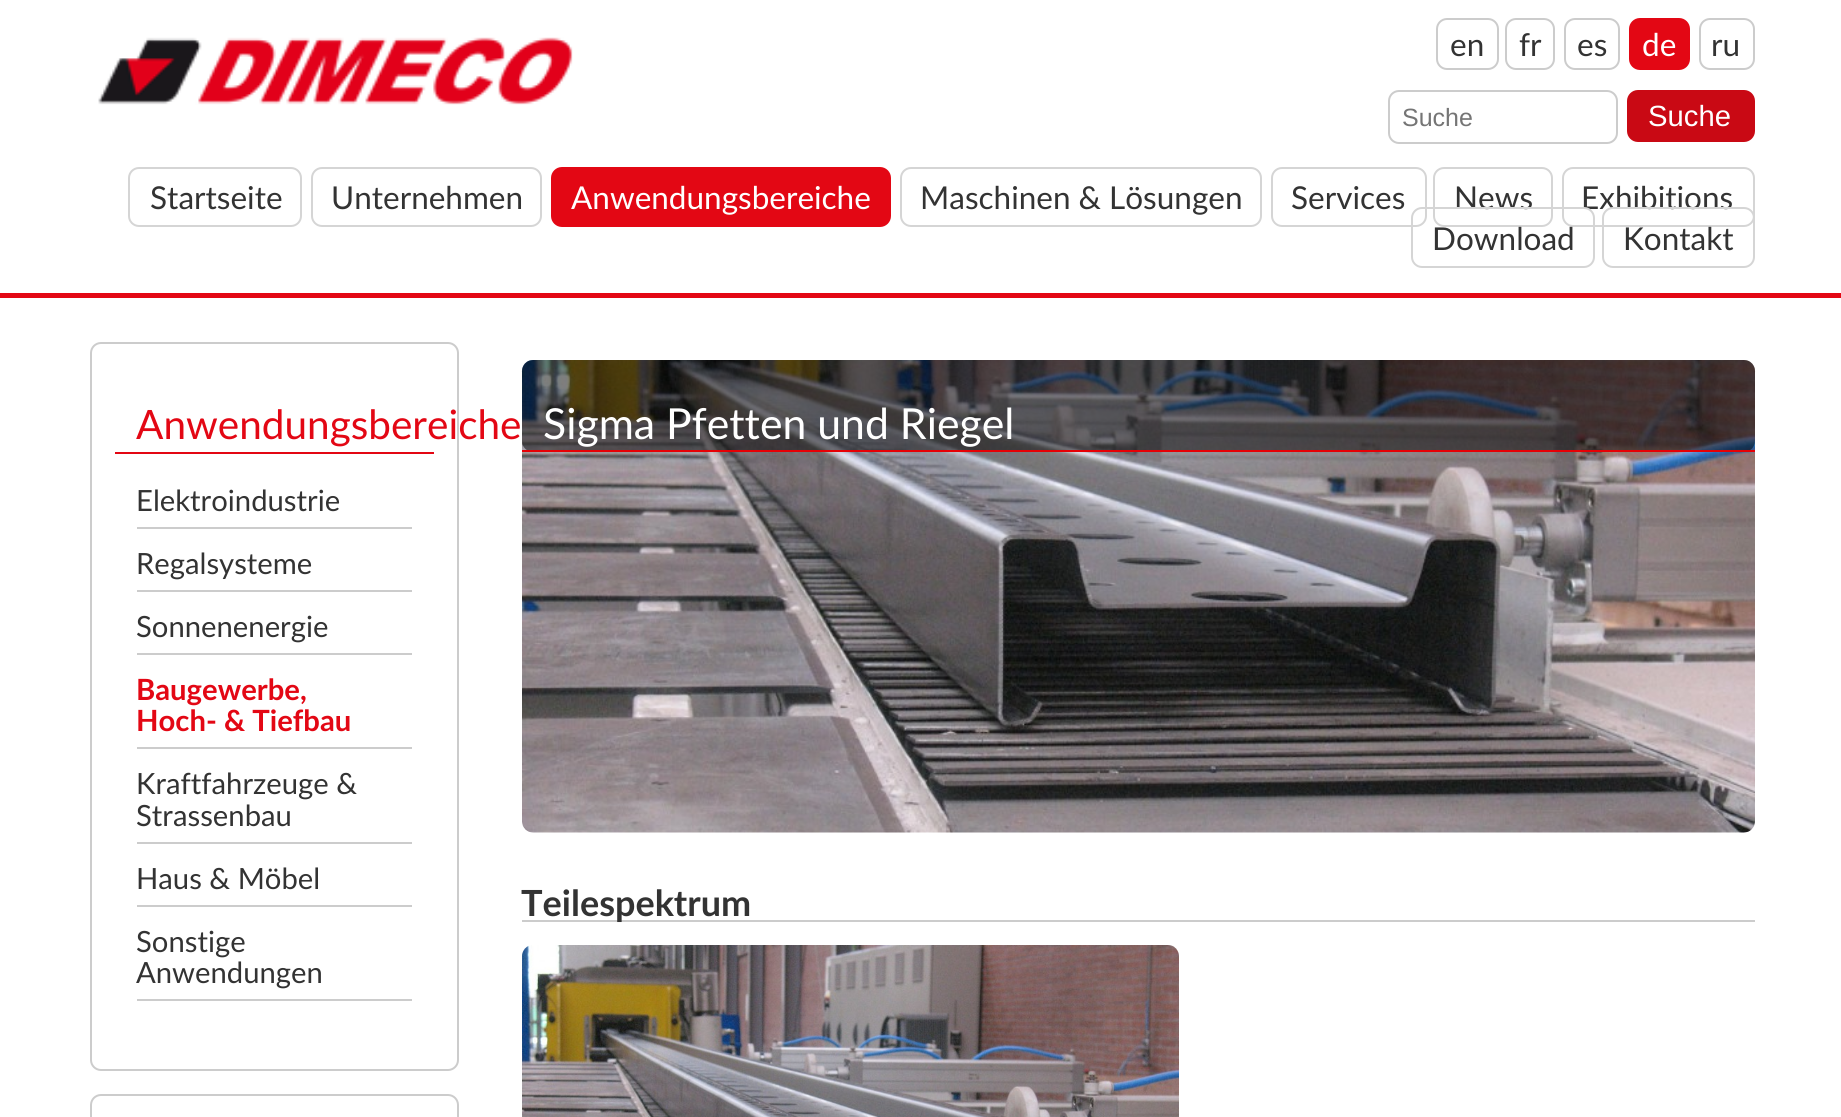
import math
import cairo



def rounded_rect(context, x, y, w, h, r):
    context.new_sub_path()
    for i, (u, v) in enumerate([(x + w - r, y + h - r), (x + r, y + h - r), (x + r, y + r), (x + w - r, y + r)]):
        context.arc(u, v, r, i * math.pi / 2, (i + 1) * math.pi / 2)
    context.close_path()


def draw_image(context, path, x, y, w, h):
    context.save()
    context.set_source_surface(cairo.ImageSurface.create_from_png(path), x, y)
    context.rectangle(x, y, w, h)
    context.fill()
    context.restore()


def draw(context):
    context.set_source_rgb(1, 1, 1)
    context.paint()
    draw_image(context, "images/1.png", 98, 37, 475, 68)
    rounded_rect(context, 1437, 19, 61, 50, 10)
    context.set_source_rgb(204 / 255, 204 / 255, 204 / 255)
    context.stroke()
    rounded_rect(context, 1506, 19, 48, 50, 10)
    context.stroke()
    rounded_rect(context, 1565, 19, 54, 50, 10)
    context.stroke()
    context.set_source_rgb(227 / 255, 7 / 255, 20 / 255)
    rounded_rect(context, 1630, 19, 59, 50, 10)
    context.fill_preserve()
    context.stroke()
    rounded_rect(context, 1700, 19, 54, 50, 10)
    context.set_source_rgb(204 / 255, 204 / 255, 204 / 255)
    context.stroke()
    rounded_rect(context, 1389, 91, 228, 52, 10)
    context.stroke()
    context.set_source_rgb(201 / 255, 9 / 255, 20 / 255)
    rounded_rect(context, 1627, 90, 128, 52, 11)
    context.fill()
    rounded_rect(context, 129, 168, 172, 58, 10)
    context.set_source_rgb(213 / 255, 213 / 255, 213 / 255)
    context.stroke()
    rounded_rect(context, 312, 168, 229, 58, 10)
    context.stroke()
    context.set_source_rgb(227 / 255, 7 / 255, 20 / 255)
    rounded_rect(context, 552, 168, 338, 58, 10)
    context.fill_preserve()
    context.stroke()
    rounded_rect(context, 901, 168, 360, 58, 10)
    context.set_source_rgb(213 / 255, 213 / 255, 213 / 255)
    context.stroke()
    rounded_rect(context, 1272, 168, 154, 58, 10)
    context.stroke()
    rounded_rect(context, 1434, 168, 118, 58, 10)
    context.stroke()
    rounded_rect(context, 1563, 168, 191, 58, 10)
    context.stroke()
    context.set_source_rgb(227 / 255, 7 / 255, 20 / 255)
    context.rectangle(0, 293, 1841, 5)
    context.fill()
    rounded_rect(context, 91, 343, 367, 727, 10)
    context.set_source_rgb(204 / 255, 204 / 255, 204 / 255)
    context.stroke()
    context.set_source_rgb(227 / 255, 6 / 255, 19 / 255)
    context.rectangle(115, 452, 319, 2)
    context.fill()
    context.set_source_rgb(204 / 255, 204 / 255, 204 / 255)
    context.rectangle(137, 527, 275, 2)
    context.fill()
    context.rectangle(137, 590, 275, 2)
    context.fill()
    context.rectangle(137, 653, 275, 2)
    context.fill()
    context.rectangle(137, 747, 275, 2)
    context.fill()
    context.rectangle(137, 842, 275, 2)
    context.fill()
    context.rectangle(137, 905, 275, 2)
    context.fill()
    context.rectangle(137, 999, 275, 2)
    context.fill()
    rounded_rect(context, 91, 1095, 367, 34, 10)
    context.stroke()
    draw_image(context, "images/2.png", 521, 360, 1235, 473)
    context.set_source_rgba(0, 0, 0, 0.5)
    rounded_rect(context, 522, 360, 1233, 92, 11)
    context.fill()
    context.set_source_rgb(230 / 255, 0, 5 / 255)
    context.rectangle(522, 450, 1233, 2)
    context.fill()
    context.set_source_rgb(204 / 255, 204 / 255, 204 / 255)
    context.rectangle(522, 920, 1233, 2)
    context.fill()
    draw_image(context, "images/3.png", 522, 945, 657, 172)
    context.select_font_face("Lato")
    context.set_font_size(31.5)
    context.set_source_rgb(51 / 255, 51 / 255, 51 / 255)
    context.move_to(1450, 56)
    context.show_text("en")
    context.move_to(1519, 56)
    context.show_text("fr")
    context.move_to(1577, 56)
    context.show_text("es")
    context.set_source_rgb(1, 1, 1)
    context.move_to(1642, 56)
    context.show_text("de")
    context.set_source_rgb(51 / 255, 51 / 255, 51 / 255)
    context.move_to(1711, 56)
    context.show_text("ru")
    context.select_font_face("Liberation Sans")
    context.set_font_size(25)
    context.set_source_rgb(117 / 255, 117 / 255, 117 / 255)
    context.move_to(1402, 126)
    context.show_text("Suche")
    context.set_font_size(29.25)
    context.set_source_rgb(1, 1, 1)
    context.move_to(1648, 126)
    context.show_text("Suche")
    context.select_font_face("Lato")
    context.set_font_size(31.5)
    context.set_source_rgb(51 / 255, 51 / 255, 51 / 255)
    context.move_to(150, 209)
    context.show_text("Startseite")
    context.move_to(331, 209)
    context.show_text("Unternehmen")
    context.set_source_rgb(1, 1, 1)
    context.move_to(571, 209)
    context.show_text("Anwendungsbereiche")
    context.set_source_rgb(51 / 255, 51 / 255, 51 / 255)
    context.move_to(920, 209)
    context.show_text("Maschinen & Lösungen")
    context.move_to(1291, 209)
    context.show_text("Services")
    context.move_to(1454, 209)
    context.show_text("News")
    context.move_to(1581, 209)
    context.show_text("Exhibitions")
    rounded_rect(context, 1412, 208, 182, 59, 10)
    context.set_source_rgb(213 / 255, 213 / 255, 213 / 255)
    context.stroke()
    context.set_source_rgb(51 / 255, 51 / 255, 51 / 255)
    context.move_to(1432, 250)
    context.show_text("Download")
    rounded_rect(context, 1603, 208, 151, 59, 10)
    context.set_source_rgb(213 / 255, 213 / 255, 213 / 255)
    context.stroke()
    context.set_source_rgb(51 / 255, 51 / 255, 51 / 255)
    context.move_to(1623, 250)
    context.show_text("Kontakt")
    context.set_font_size(40.5)
    context.set_source_rgb(227 / 255, 7 / 255, 20 / 255)
    context.move_to(136, 439)
    context.show_text("Anwendungsbereiche")
    context.set_font_size(29.25)
    context.set_source_rgb(51 / 255, 51 / 255, 51 / 255)
    context.move_to(136, 511)
    context.show_text("Elektroindustrie")
    context.move_to(136, 574)
    context.show_text("Regalsysteme")
    context.move_to(136, 637)
    context.show_text("Sonnenenergie")
    context.select_font_face("Lato", cairo.FontSlant.NORMAL, cairo.FontWeight.BOLD)
    context.set_source_rgb(227 / 255, 7 / 255, 20 / 255)
    context.move_to(136, 700)
    context.show_text("Baugewerbe,")
    context.move_to(136, 731)
    context.show_text("Hoch- & Tiefbau")
    context.select_font_face("Lato")
    context.set_source_rgb(51 / 255, 51 / 255, 51 / 255)
    context.move_to(136, 794)
    context.show_text("Kraftfahrzeuge &")
    context.move_to(136, 826)
    context.show_text("Strassenbau")
    context.move_to(136, 889)
    context.show_text("Haus & Möbel")
    context.move_to(136, 952)
    context.show_text("Sonstige")
    context.move_to(136, 983)
    context.show_text("Anwendungen")
    context.set_font_size(42.75)
    context.set_source_rgb(1, 1, 1)
    context.move_to(543, 439)
    context.show_text("Sigma Pfetten und Riegel")
    context.select_font_face("Lato", cairo.FontSlant.NORMAL, cairo.FontWeight.BOLD)
    context.set_font_size(36)
    context.set_source_rgb(51 / 255, 51 / 255, 51 / 255)
    context.move_to(521, 916)
    context.show_text("Teilespektrum")


surface = cairo.ImageSurface(cairo.Format.RGB24, 1841, 1117)
context = cairo.Context(surface)
options = cairo.FontOptions()
options.set_hint_metrics(cairo.HintMetrics.OFF)
options.set_hint_style(cairo.HintStyle.NONE)
context.set_font_options(options)
context.set_miter_limit(4)
draw(context)
surface.write_to_png("out.png")
